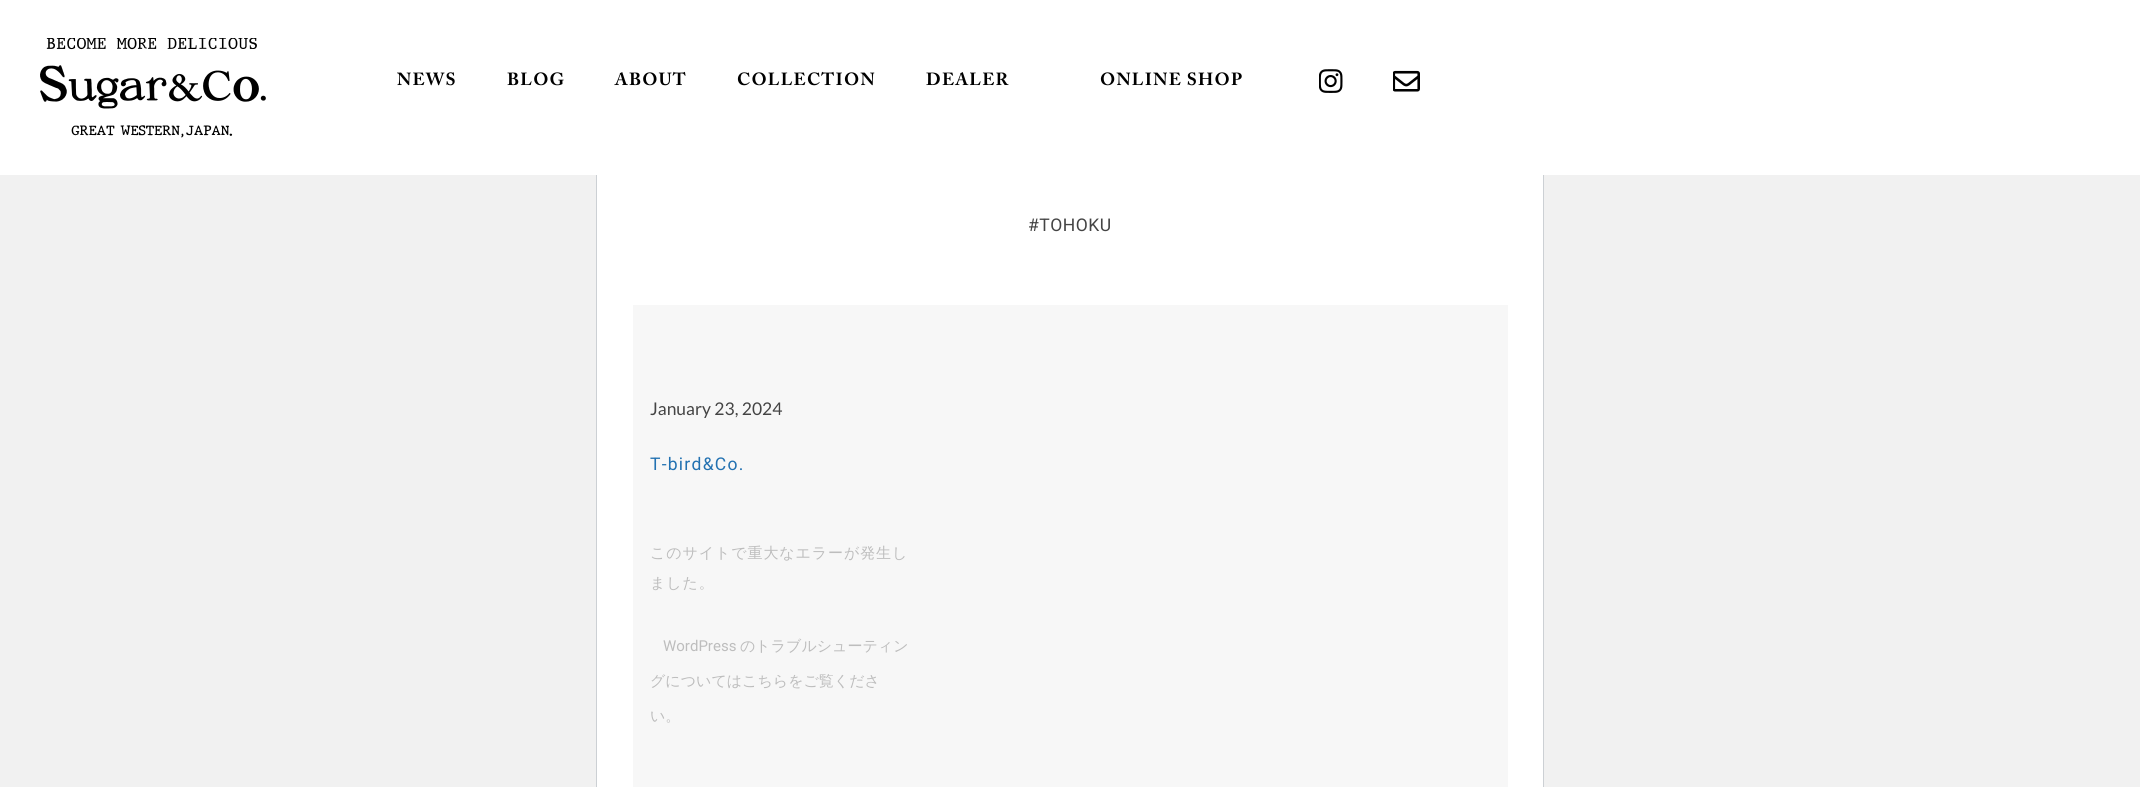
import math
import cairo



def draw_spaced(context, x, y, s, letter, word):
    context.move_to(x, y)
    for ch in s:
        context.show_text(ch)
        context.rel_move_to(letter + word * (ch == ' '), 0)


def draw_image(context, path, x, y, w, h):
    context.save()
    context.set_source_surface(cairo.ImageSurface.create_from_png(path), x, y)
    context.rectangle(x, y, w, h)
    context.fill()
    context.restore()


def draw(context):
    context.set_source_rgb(241 / 255, 241 / 255, 241 / 255)
    context.paint()
    context.set_source_rgb(1, 1, 1)
    context.rectangle(597, 175, 946, 612)
    context.fill()
    context.rectangle(596.5, 35.5, 947, 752)
    context.set_source_rgb(204 / 255, 208 / 255, 212 / 255)
    context.set_line_width(1)
    context.stroke()
    context.set_source_rgb(1, 1, 1)
    context.rectangle(0, 0, 2140, 175)
    context.fill()
    draw_image(context, "images/1.png", 40, 38, 226, 100)
    draw_image(context, "images/2.png", 1319, 69, 24, 24)
    draw_image(context, "images/3.png", 1393, 70, 27, 22)
    context.set_source_rgb(247 / 255, 247 / 255, 247 / 255)
    context.rectangle(633, 305, 875, 482)
    context.fill()
    context.select_font_face("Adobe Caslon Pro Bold", cairo.FontSlant.NORMAL, cairo.FontWeight.BOLD)
    context.set_font_size(17.5)
    context.set_source_rgb(0, 0, 0)
    draw_spaced(context, 397, 85, "NEWS", 1.25, 0)
    draw_spaced(context, 507, 85, "BLOG", 1.25, 0)
    draw_spaced(context, 615, 85, "ABOUT", 1.25, 0)
    draw_spaced(context, 737, 85, "COLLECTION", 1.25, 0)
    draw_spaced(context, 926, 85, "DEALER", 1.25, 0)
    draw_spaced(context, 1100, 85, "ONLINE SHOP", 1.25, 0)
    context.select_font_face("Roboto")
    context.set_source_rgb(68 / 255, 68 / 255, 68 / 255)
    draw_spaced(context, 1028, 231, "#TOHOKU", 0.5, 0)
    context.select_font_face("Lato")
    context.move_to(650, 415)
    context.show_text("January 23, 2024")
    context.select_font_face("Roboto")
    context.set_source_rgb(34 / 255, 113 / 255, 177 / 255)
    draw_spaced(context, 650, 470, "T-bird&Co.", 1.25, 0)
    context.select_font_face("WenQuanYi Zen Hei Medium")
    context.set_font_size(15)
    context.set_source_rgb(189 / 255, 189 / 255, 189 / 255)
    draw_spaced(context, 650, 558, "このサイトで重大なエラーが発生し", 0.9, 0)
    draw_spaced(context, 650, 588, "ました。", 0.9, 0)
    context.select_font_face("Roboto")
    context.move_to(663, 651)
    context.show_text("WordPress")
    context.select_font_face("WenQuanYi Zen Hei Medium")
    context.move_to(740, 651)
    context.show_text("のトラブルシューティン")
    context.move_to(650, 686)
    context.show_text("グについてはこちらをご覧くださ")
    context.move_to(650, 721)
    context.show_text("い。")


surface = cairo.ImageSurface(cairo.Format.RGB24, 2140, 787)
context = cairo.Context(surface)
options = cairo.FontOptions()
options.set_hint_metrics(cairo.HintMetrics.OFF)
options.set_hint_style(cairo.HintStyle.NONE)
context.set_font_options(options)
context.set_miter_limit(4)
draw(context)
surface.write_to_png("out.png")
